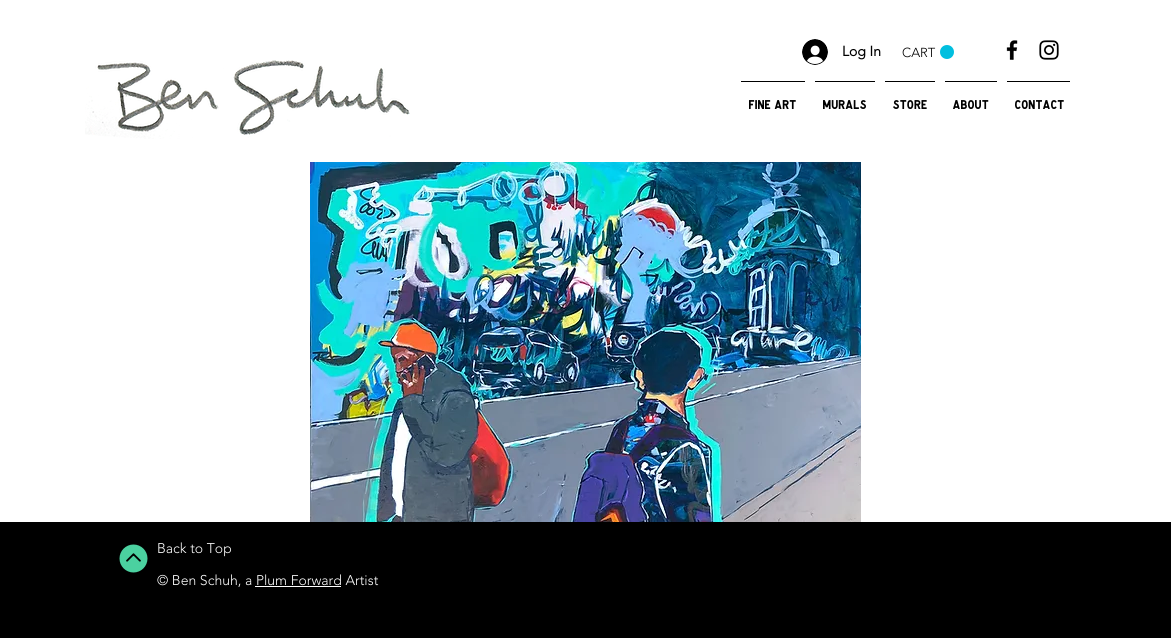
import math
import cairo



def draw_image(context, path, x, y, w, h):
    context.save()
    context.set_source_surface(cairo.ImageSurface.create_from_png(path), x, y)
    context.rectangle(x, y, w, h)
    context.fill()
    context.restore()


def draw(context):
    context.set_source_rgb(1, 1, 1)
    context.paint()
    draw_image(context, "images/1.png", 802, 39, 26, 26)
    context.set_source_rgb(1 / 255, 191 / 255, 223 / 255)
    context.arc(947, 52, 7, 0, 2 * math.pi)
    context.fill()
    draw_image(context, "images/2.png", 1006, 40, 12, 20)
    draw_image(context, "images/3.png", 1039, 40, 20, 20)
    draw_image(context, "images/4.png", 85, 60, 325, 79)
    context.set_source_rgb(0, 0, 0)
    context.rectangle(741, 81, 64, 1)
    context.fill()
    context.rectangle(815, 81, 60, 1)
    context.fill()
    context.rectangle(885, 81, 50, 1)
    context.fill()
    context.rectangle(945, 81, 52, 1)
    context.fill()
    context.rectangle(1007, 81, 63, 1)
    context.fill()
    draw_image(context, "images/5.png", 310, 162, 551, 360)
    context.rectangle(0, 522, 1171, 116)
    context.fill()
    draw_image(context, "images/6.png", 119, 544, 29, 29)
    context.set_source_rgb(1, 1, 1)
    context.rectangle(255, 586, 86, 1)
    context.fill()
    context.select_font_face("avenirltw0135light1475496", cairo.FontSlant.NORMAL, cairo.FontWeight.BOLD)
    context.set_font_size(14)
    context.set_source_rgb(0, 0, 0)
    context.move_to(842, 56)
    context.show_text("Log In")
    context.select_font_face("avenirltw0135light1475496 Light")
    context.set_font_size(13)
    context.move_to(902, 57)
    context.show_text("CART")
    context.select_font_face("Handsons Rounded")
    context.set_font_size(11)
    context.move_to(749, 109)
    context.show_text("Fine Art")
    context.move_to(823, 109)
    context.show_text("Murals")
    context.move_to(893, 109)
    context.show_text("Store")
    context.move_to(953, 109)
    context.show_text("About")
    context.move_to(1015, 109)
    context.show_text("Contact")
    context.select_font_face("avenirltw0135light1475496 Light")
    context.set_font_size(14)
    context.set_source_rgb(1, 1, 1)
    context.move_to(157, 553)
    context.show_text("Back to Top")
    context.move_to(157, 585)
    context.show_text("© Ben Schuh, a Plum Forward Artist")


surface = cairo.ImageSurface(cairo.Format.RGB24, 1171, 638)
context = cairo.Context(surface)
options = cairo.FontOptions()
options.set_hint_metrics(cairo.HintMetrics.OFF)
options.set_hint_style(cairo.HintStyle.NONE)
context.set_font_options(options)
context.set_miter_limit(4)
draw(context)
surface.write_to_png("out.png")
